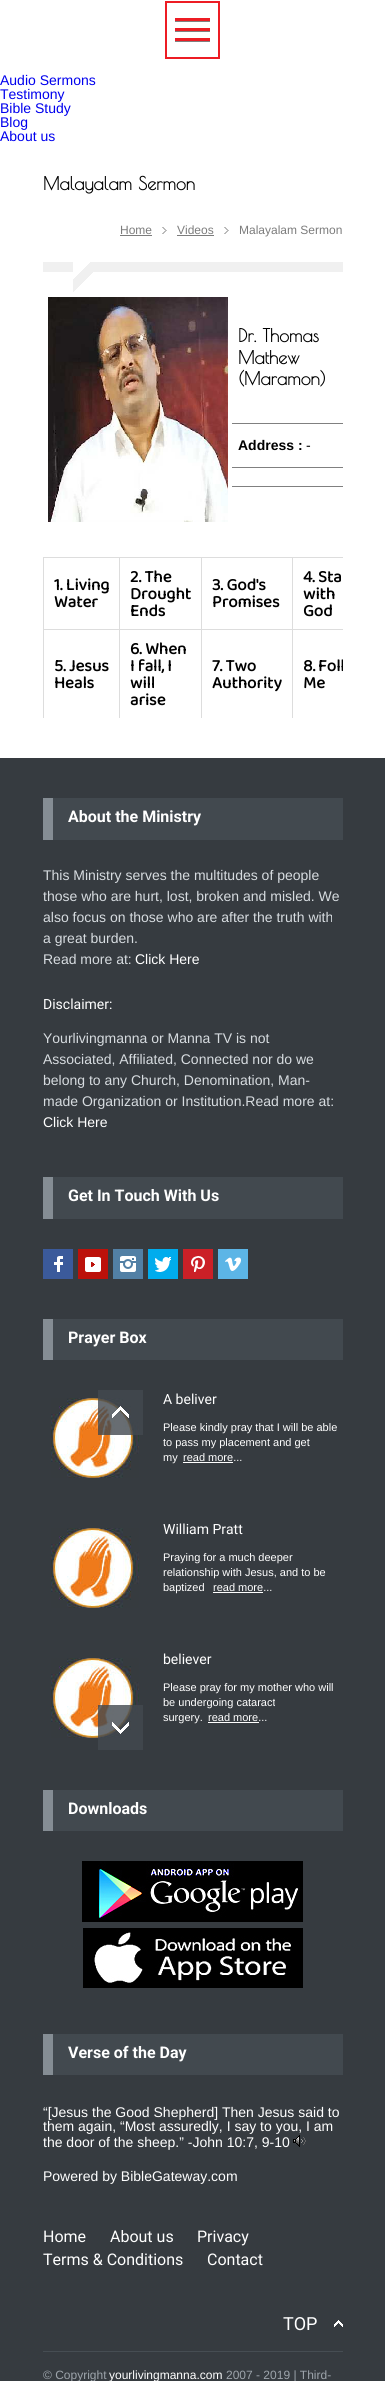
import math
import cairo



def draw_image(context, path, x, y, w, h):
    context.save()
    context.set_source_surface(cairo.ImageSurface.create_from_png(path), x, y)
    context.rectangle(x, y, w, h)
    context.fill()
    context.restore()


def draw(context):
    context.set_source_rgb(1, 1, 1)
    context.paint()
    context.rectangle(166, 2, 53, 56)
    context.set_source_rgb(237 / 255, 28 / 255, 36 / 255)
    context.stroke()
    context.rectangle(175, 18, 35, 3)
    context.fill()
    context.set_source_rgb(128 / 255, 128 / 255, 128 / 255)
    context.rectangle(175, 21, 35, 1)
    context.fill()
    context.set_source_rgb(237 / 255, 28 / 255, 36 / 255)
    context.rectangle(175, 28, 35, 3)
    context.fill()
    context.set_source_rgb(128 / 255, 128 / 255, 128 / 255)
    context.rectangle(175, 31, 35, 1)
    context.fill()
    context.set_source_rgb(237 / 255, 28 / 255, 36 / 255)
    context.rectangle(175, 38, 35, 3)
    context.fill()
    context.set_source_rgb(128 / 255, 128 / 255, 128 / 255)
    context.rectangle(175, 41, 35, 1)
    context.fill()
    context.set_source_rgb(124 / 255, 124 / 255, 124 / 255)
    context.rectangle(120, 235, 32, 1)
    context.fill()
    draw_image(context, "images/1.png", 162, 227, 5, 7)
    context.rectangle(177, 235, 37, 1)
    context.fill()
    draw_image(context, "images/1.png", 224, 227, 5, 7)
    context.set_source_rgb(240 / 255, 240 / 255, 240 / 255)
    context.rectangle(43, 262, 30, 10)
    context.fill()
    draw_image(context, "images/2.png", 73, 262, 20, 30)
    context.rectangle(93, 262, 250, 10)
    context.fill()
    draw_image(context, "images/3.png", 48, 297, 180, 225)
    context.set_source_rgb(128 / 255, 128 / 255, 128 / 255)
    context.rectangle(232, 423, 111, 1)
    context.fill()
    context.rectangle(232, 467, 111, 1)
    context.fill()
    context.rectangle(232, 486, 111, 1)
    context.fill()
    context.set_source_rgb(221 / 255, 221 / 255, 221 / 255)
    context.rectangle(292, 557, 51, 1)
    context.fill()
    context.rectangle(292, 629, 51, 1)
    context.fill()
    context.rectangle(292, 629, 1, 89)
    context.fill()
    context.rectangle(201, 629, 92, 1)
    context.fill()
    context.rectangle(292, 557, 1, 73)
    context.fill()
    context.rectangle(201, 557, 92, 1)
    context.fill()
    context.rectangle(201, 629, 1, 89)
    context.fill()
    context.rectangle(119, 629, 83, 1)
    context.fill()
    context.rectangle(201, 557, 1, 73)
    context.fill()
    context.rectangle(119, 557, 83, 1)
    context.fill()
    context.rectangle(119, 629, 1, 89)
    context.fill()
    context.rectangle(43, 629, 77, 1)
    context.fill()
    context.rectangle(119, 557, 1, 73)
    context.fill()
    context.rectangle(43, 557, 77, 1)
    context.fill()
    context.rectangle(43, 629, 1, 89)
    context.fill()
    context.rectangle(43, 557, 1, 73)
    context.fill()
    context.set_source_rgb(54 / 255, 59 / 255, 64 / 255)
    context.rectangle(0, 758, 385, 1623)
    context.fill()
    context.set_source_rgb(66 / 255, 73 / 255, 79 / 255)
    context.rectangle(53, 798, 290, 42)
    context.fill()
    context.set_source_rgb(133 / 255, 141 / 255, 148 / 255)
    context.rectangle(43, 798, 10, 42)
    context.fill()
    context.set_source_rgb(66 / 255, 73 / 255, 79 / 255)
    context.rectangle(53, 1177, 290, 42)
    context.fill()
    context.set_source_rgb(133 / 255, 141 / 255, 148 / 255)
    context.rectangle(43, 1177, 10, 42)
    context.fill()
    context.set_source_rgb(59 / 255, 90 / 255, 155 / 255)
    context.rectangle(43, 1249, 30, 30)
    context.fill()
    draw_image(context, "images/4.png", 54, 1256, 9, 16)
    context.set_source_rgb(188 / 255, 17 / 255, 10 / 255)
    context.rectangle(78, 1249, 30, 30)
    context.fill()
    draw_image(context, "images/5.png", 85, 1257, 16, 15)
    context.set_source_rgb(82 / 255, 128 / 255, 165 / 255)
    context.rectangle(113, 1249, 30, 30)
    context.fill()
    draw_image(context, "images/6.png", 120, 1256, 16, 16)
    context.set_source_rgb(0, 172 / 255, 237 / 255)
    context.rectangle(148, 1249, 30, 30)
    context.fill()
    draw_image(context, "images/7.png", 155, 1257, 16, 15)
    context.set_source_rgb(203 / 255, 32 / 255, 39 / 255)
    context.rectangle(183, 1249, 30, 30)
    context.fill()
    draw_image(context, "images/8.png", 191, 1256, 14, 16)
    context.set_source_rgb(92 / 255, 181 / 255, 230 / 255)
    context.rectangle(218, 1249, 30, 30)
    context.fill()
    draw_image(context, "images/9.png", 225, 1257, 16, 14)
    context.set_source_rgb(66 / 255, 73 / 255, 79 / 255)
    context.rectangle(53, 1319, 290, 41)
    context.fill()
    context.set_source_rgb(133 / 255, 141 / 255, 148 / 255)
    context.rectangle(43, 1319, 10, 41)
    context.fill()
    draw_image(context, "images/11.png", 51, 1398, 88, 80)
    context.set_source_rgba(66 / 255, 73 / 255, 79 / 255, 0.8)
    context.rectangle(98, 1390, 45, 45)
    context.fill()
    draw_image(context, "images/10.png", 112, 1406, 17, 12)
    context.set_source_rgb(1, 1, 1)
    context.rectangle(183, 1462, 50, 1)
    context.fill()
    draw_image(context, "images/11.png", 51, 1528, 88, 80)
    context.rectangle(213, 1592, 50, 1)
    context.fill()
    draw_image(context, "images/11.png", 51, 1658, 88, 80)
    context.rectangle(208, 1722, 51, 1)
    context.fill()
    context.set_source_rgba(66 / 255, 73 / 255, 79 / 255, 0.8)
    context.rectangle(98, 1705, 45, 45)
    context.fill()
    draw_image(context, "images/12.png", 112, 1722, 17, 12)
    context.set_source_rgb(66 / 255, 73 / 255, 79 / 255)
    context.rectangle(53, 1790, 290, 41)
    context.fill()
    context.set_source_rgb(133 / 255, 141 / 255, 148 / 255)
    context.rectangle(43, 1790, 10, 41)
    context.fill()
    draw_image(context, "images/13.png", 82, 1861, 221, 61)
    draw_image(context, "images/14.png", 83, 1928, 220, 60)
    context.set_source_rgb(66 / 255, 73 / 255, 79 / 255)
    context.rectangle(53, 2034, 290, 41)
    context.fill()
    context.set_source_rgb(133 / 255, 141 / 255, 148 / 255)
    context.rectangle(43, 2034, 10, 41)
    context.fill()
    draw_image(context, "images/15.png", 293, 2135, 13, 12)
    draw_image(context, "images/16.png", 334, 2320, 9, 7)
    context.set_source_rgb(70 / 255, 77 / 255, 83 / 255)
    context.rectangle(43, 2351, 300, 1)
    context.fill()
    context.select_font_face("Liberation Sans")
    context.set_font_size(14)
    context.set_source_rgb(0, 0, 238 / 255)
    context.move_to(0, 85)
    context.show_text("Audio Sermons")
    context.move_to(0, 99)
    context.show_text("Testimony")
    context.move_to(0, 113)
    context.show_text("Bible Study")
    context.move_to(0, 127)
    context.show_text("Blog")
    context.move_to(0, 141)
    context.show_text("About us")
    context.select_font_face("Poiret One", cairo.FontSlant.NORMAL, cairo.FontWeight.BOLD)
    context.set_font_size(18)
    context.set_source_rgb(0, 0, 0)
    context.move_to(43, 190)
    context.show_text("Malayalam Sermon")
    context.select_font_face("Liberation Sans")
    context.set_font_size(12)
    context.set_source_rgb(124 / 255, 124 / 255, 124 / 255)
    context.move_to(120, 234)
    context.show_text("Home")
    context.move_to(177, 234)
    context.show_text("Videos")
    context.move_to(239, 234)
    context.show_text("Malayalam Sermon")
    context.select_font_face("Poiret One", cairo.FontSlant.NORMAL, cairo.FontWeight.BOLD)
    context.set_font_size(18)
    context.set_source_rgb(0, 0, 0)
    context.move_to(238, 342)
    context.show_text("Dr. Thomas")
    context.move_to(238, 364)
    context.show_text("Mathew")
    context.move_to(238, 385)
    context.show_text("(Maramon)")
    context.select_font_face("Liberation Sans", cairo.FontSlant.NORMAL, cairo.FontWeight.BOLD)
    context.set_font_size(14)
    context.move_to(238, 450)
    context.show_text("Address :")
    context.select_font_face("Liberation Sans")
    context.move_to(306, 450)
    context.show_text("-")
    context.select_font_face("Baloo Chettan 2", cairo.FontSlant.NORMAL, cairo.FontWeight.BOLD)
    context.set_font_size(17)
    context.move_to(54, 590)
    context.show_text("1. Living")
    context.move_to(54, 607)
    context.show_text("Water")
    context.move_to(130, 582)
    context.show_text("2. The")
    context.move_to(130, 599)
    context.show_text("Drought")
    context.move_to(130, 616)
    context.show_text("Ends")
    context.move_to(212, 590)
    context.show_text("3. God's")
    context.move_to(212, 607)
    context.show_text("Promises")
    context.move_to(303, 582)
    context.show_text("4. Sta")
    context.move_to(303, 599)
    context.show_text("with")
    context.move_to(303, 616)
    context.show_text("God")
    context.move_to(54, 671)
    context.show_text("5. Jesus")
    context.move_to(54, 688)
    context.show_text("Heals")
    context.move_to(130, 654)
    context.show_text("6. When")
    context.move_to(130, 671)
    context.show_text("I fall, I")
    context.move_to(130, 688)
    context.show_text("will")
    context.move_to(130, 705)
    context.show_text("arise")
    context.move_to(212, 671)
    context.show_text("7. Two")
    context.move_to(212, 688)
    context.show_text("Authority")
    context.move_to(303, 671)
    context.show_text("8.")
    context.save()
    context.rectangle(43, 557, 300, 161)
    context.clip()
    context.move_to(318, 671)
    context.show_text("Foll")
    context.restore()
    context.move_to(303, 688)
    context.show_text("Me")
    context.select_font_face("Roboto", cairo.FontSlant.NORMAL, cairo.FontWeight.BOLD)
    context.set_font_size(16)
    context.set_source_rgb(1, 1, 1)
    context.move_to(68, 822)
    context.show_text("About the Ministry")
    context.select_font_face("Liberation Sans")
    context.set_font_size(14)
    context.set_source_rgb(215 / 255, 220 / 255, 224 / 255)
    context.move_to(43, 880)
    context.show_text("This Ministry serves the multitudes of people")
    context.move_to(43, 901)
    context.show_text("those who are hurt, lost, broken and misled. We")
    context.move_to(43, 922)
    context.show_text("also focus on those who are after the truth with")
    context.move_to(43, 943)
    context.show_text("a great burden.")
    context.move_to(43, 964)
    context.show_text("Read more at:")
    context.set_source_rgb(1, 1, 1)
    context.move_to(135, 964)
    context.show_text("Click Here")
    context.select_font_face("Roboto")
    context.move_to(43, 1009)
    context.show_text("Disclaimer:")
    context.select_font_face("Liberation Sans")
    context.set_source_rgb(215 / 255, 220 / 255, 224 / 255)
    context.move_to(43, 1043)
    context.show_text("Yourlivingmanna or Manna TV is not")
    context.move_to(43, 1064)
    context.show_text("Associated, Affiliated, Connected nor do we")
    context.move_to(43, 1085)
    context.show_text("belong to any Church, Denomination, Man-")
    context.move_to(43, 1106)
    context.show_text("made Organization or Institution.Read more at:")
    context.set_source_rgb(1, 1, 1)
    context.move_to(43, 1127)
    context.show_text("Click Here")
    context.select_font_face("Roboto", cairo.FontSlant.NORMAL, cairo.FontWeight.BOLD)
    context.set_font_size(16)
    context.move_to(68, 1201)
    context.show_text("Get In Touch With Us")
    context.move_to(68, 1343)
    context.show_text("Prayer Box")
    context.select_font_face("Roboto")
    context.set_font_size(14)
    context.move_to(163, 1404)
    context.show_text("A beliver")
    context.select_font_face("Liberation Sans")
    context.set_font_size(11)
    context.move_to(163, 1431)
    context.show_text("Please kindly pray that I will be able")
    context.move_to(163, 1446)
    context.show_text("to pass my placement and get")
    context.move_to(163, 1461)
    context.show_text("my")
    context.move_to(183, 1461)
    context.show_text("read more...")
    context.select_font_face("Roboto")
    context.set_font_size(14)
    context.move_to(163, 1534)
    context.show_text("William Pratt")
    context.select_font_face("Liberation Sans")
    context.set_font_size(11)
    context.move_to(163, 1561)
    context.show_text("Praying for a much deeper")
    context.move_to(163, 1576)
    context.show_text("relationship with Jesus, and to be")
    context.move_to(163, 1591)
    context.show_text("baptized")
    context.move_to(213, 1591)
    context.show_text("read more...")
    context.select_font_face("Roboto")
    context.set_font_size(14)
    context.move_to(163, 1664)
    context.show_text("believer")
    context.select_font_face("Liberation Sans")
    context.set_font_size(11)
    context.move_to(163, 1691)
    context.show_text("Please pray for my mother who will")
    context.move_to(163, 1706)
    context.show_text("be undergoing cataract")
    context.move_to(163, 1721)
    context.show_text("surgery.")
    context.move_to(208, 1721)
    context.show_text("read more...")
    context.select_font_face("Roboto", cairo.FontSlant.NORMAL, cairo.FontWeight.BOLD)
    context.set_font_size(16)
    context.move_to(68, 1814)
    context.show_text("Downloads")
    context.move_to(68, 2058)
    context.show_text("Verse of the Day")
    context.select_font_face("Liberation Sans")
    context.set_font_size(14)
    context.move_to(43, 2117)
    context.show_text("“[Jesus the Good Shepherd] Then Jesus said to")
    context.move_to(43, 2131)
    context.show_text("them again, “Most assuredly, I say to you, I am")
    context.move_to(43, 2147)
    context.show_text("the door of the sheep.” -John 10:7, 9-10")
    context.move_to(43, 2181)
    context.show_text("Powered by BibleGateway.com")
    context.select_font_face("Roboto")
    context.set_font_size(16)
    context.move_to(43, 2242)
    context.show_text("Home")
    context.move_to(110, 2242)
    context.show_text("About us")
    context.move_to(197, 2242)
    context.show_text("Privacy")
    context.move_to(43, 2265)
    context.show_text("Terms & Conditions")
    context.move_to(207, 2265)
    context.show_text("Contact")
    context.set_font_size(18)
    context.move_to(283, 2330)
    context.show_text("TOP")
    context.select_font_face("Liberation Sans")
    context.set_font_size(12)
    context.set_source_rgb(157 / 255, 164 / 255, 171 / 255)
    context.move_to(43, 2379)
    context.show_text("© Copyright")
    context.set_source_rgb(1, 1, 1)
    context.move_to(109, 2379)
    context.show_text("yourlivingmanna.com")
    context.set_source_rgb(157 / 255, 164 / 255, 171 / 255)
    context.move_to(226, 2379)
    context.show_text("2007 - 2019 | Third-")


surface = cairo.ImageSurface(cairo.Format.RGB24, 385, 2381)
context = cairo.Context(surface)
options = cairo.FontOptions()
options.set_hint_metrics(cairo.HintMetrics.OFF)
options.set_hint_style(cairo.HintStyle.NONE)
context.set_font_options(options)
context.set_miter_limit(4)
draw(context)
surface.write_to_png("out.png")
